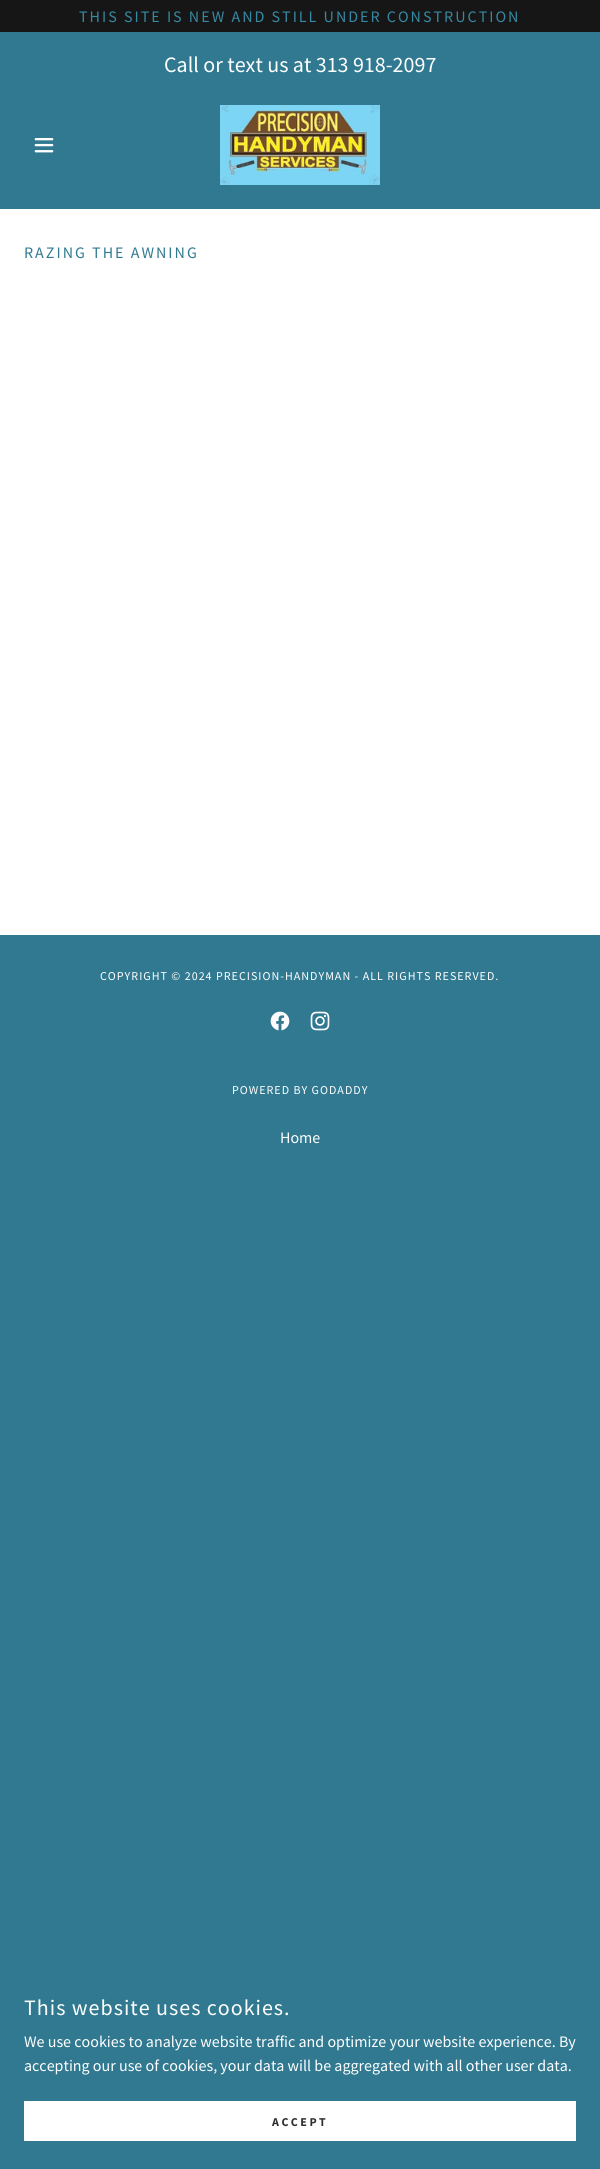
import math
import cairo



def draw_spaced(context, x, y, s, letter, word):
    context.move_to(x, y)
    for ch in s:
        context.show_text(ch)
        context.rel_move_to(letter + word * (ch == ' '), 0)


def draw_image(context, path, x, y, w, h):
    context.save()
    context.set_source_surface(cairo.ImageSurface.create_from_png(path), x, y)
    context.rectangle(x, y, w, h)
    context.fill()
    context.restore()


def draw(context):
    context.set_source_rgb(48 / 255, 121 / 255, 145 / 255)
    context.paint()
    context.set_source_rgb(22 / 255, 22 / 255, 22 / 255)
    context.rectangle(0, 0, 600, 32)
    context.fill()
    draw_image(context, "images/1.png", 34, 138, 20, 15)
    draw_image(context, "images/2.png", 220, 105, 160, 80)
    context.set_source_rgb(1, 1, 1)
    context.rectangle(0, 209, 600, 726)
    context.fill()
    draw_image(context, "images/3.png", 270, 1011, 20, 20)
    draw_image(context, "images/4.png", 310, 1011, 20, 20)
    context.rectangle(24, 2101, 552, 40)
    context.fill()
    context.select_font_face("Source Sans Pro")
    context.set_font_size(16)
    context.set_source_rgb(55 / 255, 137 / 255, 163 / 255)
    draw_spaced(context, 79, 22, "THIS SITE IS NEW AND STILL UNDER CONSTRUCTION", 2, 0)
    context.set_font_size(22)
    context.set_source_rgb(1, 1, 1)
    context.move_to(164, 72)
    context.show_text("Call or text us at 313 918-2097")
    context.set_font_size(16)
    context.set_source_rgb(48 / 255, 121 / 255, 145 / 255)
    draw_spaced(context, 24, 258, "RAZING THE AWNING", 2, 0)
    context.set_font_size(12)
    context.set_source_rgb(1, 1, 1)
    draw_spaced(context, 100, 980, "COPYRIGHT © 2024 PRECISION-HANDYMAN - ALL RIGHTS RESERVED.", 1, 0)
    draw_spaced(context, 232, 1094, "POWERED BY GODADDY", 1, 0)
    context.set_font_size(16)
    context.move_to(280, 1143)
    context.show_text("Home")
    context.set_font_size(22)
    draw_spaced(context, 24, 2015, "This website uses cookies.", 1, 0)
    context.set_font_size(16)
    context.move_to(24, 2047)
    context.show_text("We use cookies to analyze website traffic and optimize your website experience. By")
    context.move_to(24, 2071)
    context.show_text("accepting our use of cookies, your data will be aggregated with all other user data.")
    context.select_font_face("Source Sans Pro", cairo.FontSlant.NORMAL, cairo.FontWeight.BOLD)
    context.set_font_size(12)
    context.set_source_rgb(48 / 255, 48 / 255, 48 / 255)
    draw_spaced(context, 272, 2126, "ACCEPT", 2.5, 0)


surface = cairo.ImageSurface(cairo.Format.RGB24, 600, 2169)
context = cairo.Context(surface)
options = cairo.FontOptions()
options.set_hint_metrics(cairo.HintMetrics.OFF)
options.set_hint_style(cairo.HintStyle.NONE)
context.set_font_options(options)
context.set_miter_limit(4)
draw(context)
surface.write_to_png("out.png")
